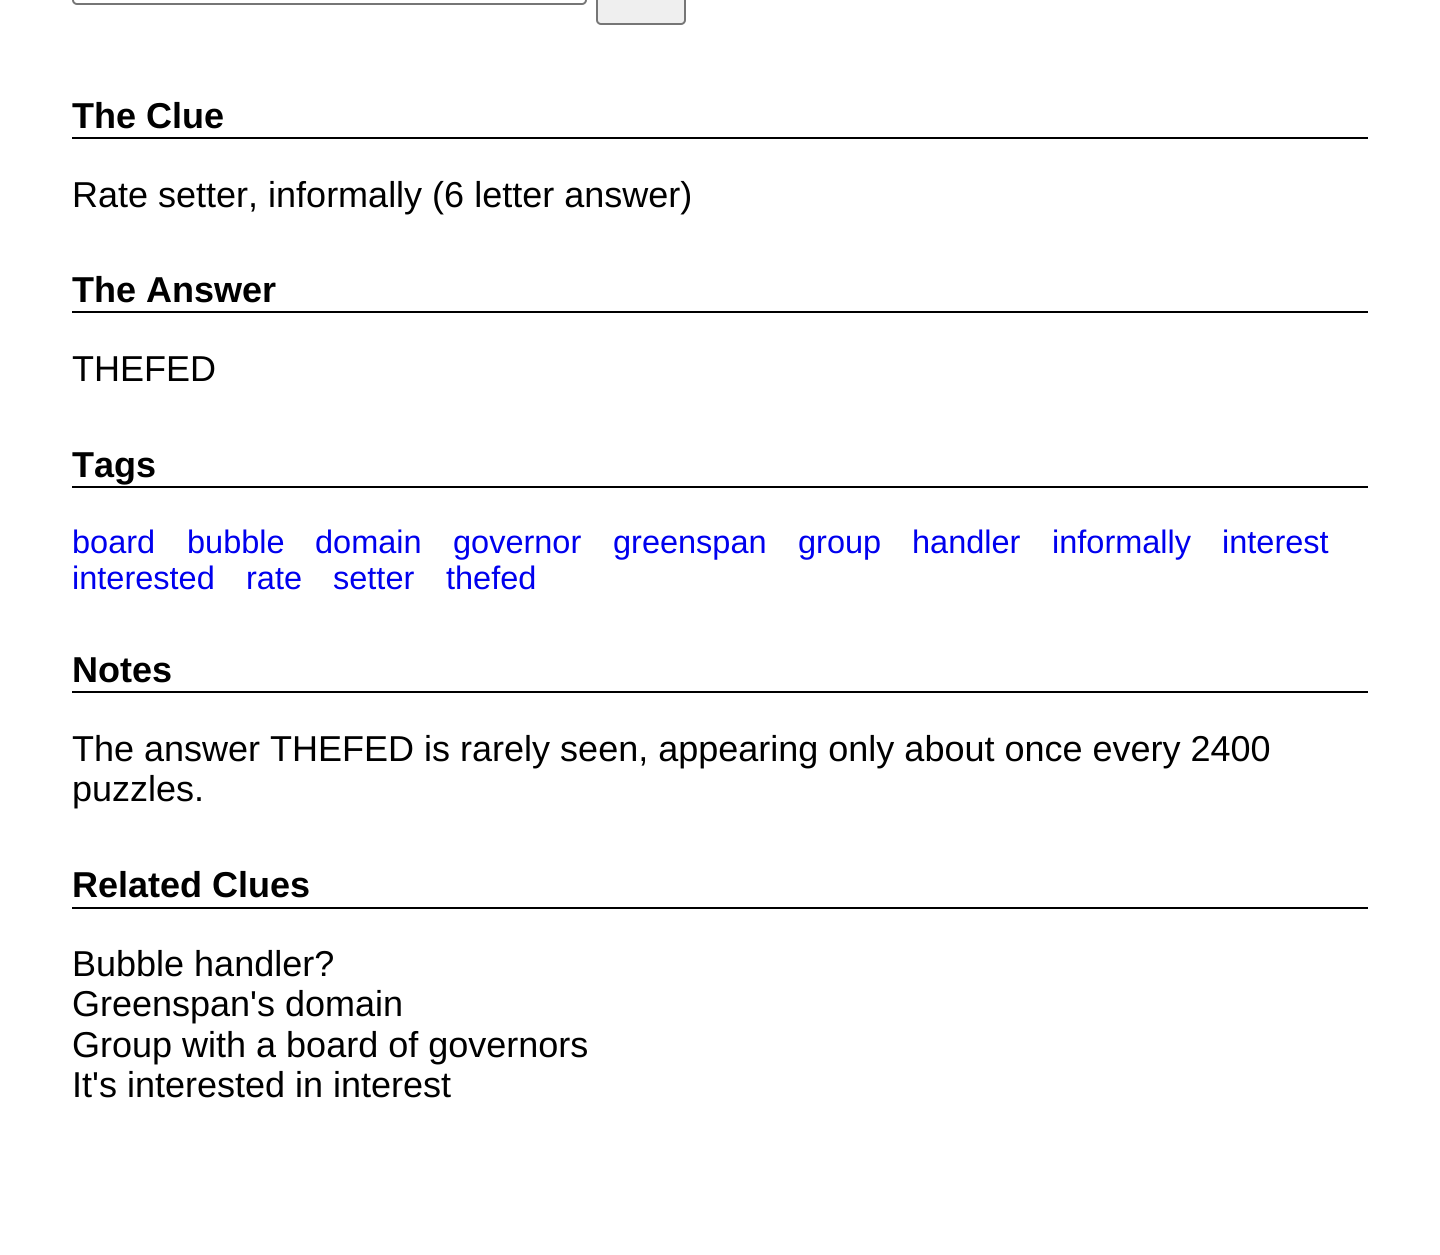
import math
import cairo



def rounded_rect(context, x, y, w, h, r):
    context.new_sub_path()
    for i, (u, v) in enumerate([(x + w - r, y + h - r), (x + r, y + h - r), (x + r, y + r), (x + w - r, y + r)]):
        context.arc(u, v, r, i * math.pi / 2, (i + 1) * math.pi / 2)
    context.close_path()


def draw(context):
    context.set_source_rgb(1, 1, 1)
    context.paint()
    rounded_rect(context, 73, -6, 513, 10, 4)
    context.set_source_rgb(118 / 255, 118 / 255, 118 / 255)
    context.stroke()
    context.set_source_rgb(239 / 255, 239 / 255, 239 / 255)
    rounded_rect(context, 597, -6, 88, 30, 4)
    context.fill_preserve()
    context.set_source_rgb(118 / 255, 118 / 255, 118 / 255)
    context.stroke()
    context.set_source_rgb(0, 0, 0)
    context.rectangle(72, 137, 1296, 2)
    context.fill()
    context.rectangle(72, 311, 1296, 2)
    context.fill()
    context.rectangle(72, 486, 1296, 2)
    context.fill()
    context.rectangle(72, 691, 1296, 2)
    context.fill()
    context.rectangle(72, 907, 1296, 2)
    context.fill()
    context.select_font_face("Liberation Sans", cairo.FontSlant.NORMAL, cairo.FontWeight.BOLD)
    context.set_font_size(36)
    context.move_to(72, 128)
    context.show_text("The Clue")
    context.select_font_face("Liberation Sans")
    context.move_to(72, 207)
    context.show_text("Rate setter, informally (6 letter answer)")
    context.select_font_face("Liberation Sans", cairo.FontSlant.NORMAL, cairo.FontWeight.BOLD)
    context.move_to(72, 302)
    context.show_text("The Answer")
    context.select_font_face("Liberation Sans")
    context.move_to(72, 381)
    context.show_text("THEFED")
    context.select_font_face("Liberation Sans", cairo.FontSlant.NORMAL, cairo.FontWeight.BOLD)
    context.move_to(72, 477)
    context.show_text("Tags")
    context.select_font_face("Liberation Sans")
    context.set_font_size(32.5)
    context.set_source_rgb(0, 0, 238 / 255)
    context.move_to(72, 553)
    context.show_text("board")
    context.move_to(187, 553)
    context.show_text("bubble")
    context.move_to(315, 553)
    context.show_text("domain")
    context.move_to(453, 553)
    context.show_text("governor")
    context.move_to(613, 553)
    context.show_text("greenspan")
    context.move_to(798, 553)
    context.show_text("group")
    context.move_to(912, 553)
    context.show_text("handler")
    context.move_to(1052, 553)
    context.show_text("informally")
    context.move_to(1222, 553)
    context.show_text("interest")
    context.move_to(72, 589)
    context.show_text("interested")
    context.move_to(246, 589)
    context.show_text("rate")
    context.move_to(333, 589)
    context.show_text("setter")
    context.move_to(446, 589)
    context.show_text("thefed")
    context.select_font_face("Liberation Sans", cairo.FontSlant.NORMAL, cairo.FontWeight.BOLD)
    context.set_font_size(36)
    context.set_source_rgb(0, 0, 0)
    context.move_to(72, 682)
    context.show_text("Notes")
    context.select_font_face("Liberation Sans")
    context.move_to(72, 761)
    context.show_text("The answer THEFED is rarely seen, appearing only about once every 2400")
    context.move_to(72, 801)
    context.show_text("puzzles.")
    context.select_font_face("Liberation Sans", cairo.FontSlant.NORMAL, cairo.FontWeight.BOLD)
    context.move_to(72, 897)
    context.show_text("Related Clues")
    context.select_font_face("Liberation Sans")
    context.move_to(72, 976)
    context.show_text("Bubble handler?")
    context.move_to(72, 1016)
    context.show_text("Greenspan's domain")
    context.move_to(72, 1057)
    context.show_text("Group with a board of governors")
    context.move_to(72, 1097)
    context.show_text("It's interested in interest")


surface = cairo.ImageSurface(cairo.Format.RGB24, 1440, 1255)
context = cairo.Context(surface)
options = cairo.FontOptions()
options.set_hint_metrics(cairo.HintMetrics.OFF)
options.set_hint_style(cairo.HintStyle.NONE)
context.set_font_options(options)
context.set_miter_limit(4)
draw(context)
surface.write_to_png("out.png")
